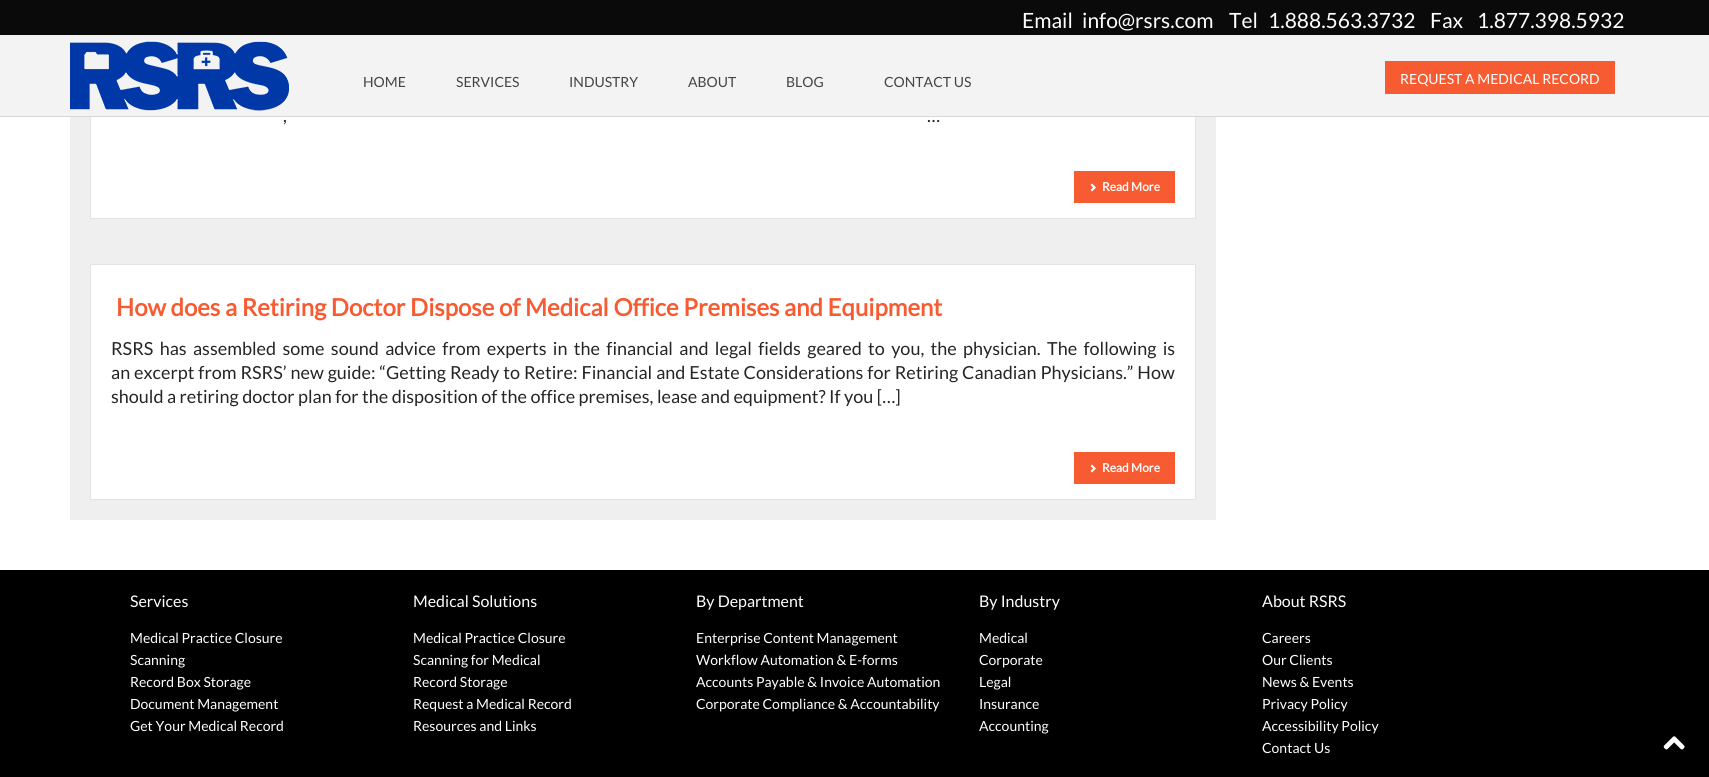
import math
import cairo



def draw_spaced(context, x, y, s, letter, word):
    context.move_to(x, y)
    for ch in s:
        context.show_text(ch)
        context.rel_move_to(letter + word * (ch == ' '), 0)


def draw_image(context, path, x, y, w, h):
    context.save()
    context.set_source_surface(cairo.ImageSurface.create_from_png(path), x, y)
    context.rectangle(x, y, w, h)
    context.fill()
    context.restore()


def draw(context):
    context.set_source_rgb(0, 0, 0)
    context.paint()
    context.set_source_rgb(1, 1, 1)
    context.rectangle(0, 36, 1709, 534)
    context.fill()
    context.set_source_rgb(239 / 255, 239 / 255, 239 / 255)
    context.rectangle(70, 36, 1146, 484)
    context.fill()
    context.set_source_rgb(1, 1, 1)
    context.rectangle(91, 36, 1104, 182)
    context.fill()
    context.rectangle(90.5, -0.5, 1105, 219)
    context.set_source_rgb(227 / 255, 227 / 255, 227 / 255)
    context.set_line_width(1)
    context.stroke()
    context.set_source_rgb(215 / 255, 215 / 255, 215 / 255)
    context.rectangle(0, 116, 1709, 1)
    context.fill()
    context.set_source_rgb(10 / 255, 10 / 255, 10 / 255)
    context.rectangle(0, 0, 1709, 35)
    context.fill()
    context.set_source_rgb(240 / 255, 240 / 255, 240 / 255)
    context.rectangle(0, 35, 1709, 1)
    context.fill()
    context.set_source_rgba(243 / 255, 243 / 255, 243 / 255, 0.97)
    context.rectangle(0, 36, 1709, 80)
    context.fill()
    draw_image(context, "images/1.png", 70, 41, 219, 70)
    context.set_source_rgb(247 / 255, 91 / 255, 50 / 255)
    context.rectangle(1385, 61, 230, 33)
    context.fill()
    context.rectangle(1074, 171, 101, 32)
    context.fill()
    draw_image(context, "images/2.png", 1090, 183, 6, 9)
    context.set_source_rgb(1, 1, 1)
    context.rectangle(90.5, 264.5, 1105, 235)
    context.fill_preserve()
    context.set_source_rgb(227 / 255, 227 / 255, 227 / 255)
    context.stroke()
    context.set_source_rgb(247 / 255, 91 / 255, 50 / 255)
    context.rectangle(1074, 452, 101, 32)
    context.fill()
    draw_image(context, "images/2.png", 1090, 464, 6, 9)
    draw_image(context, "images/3.png", 1663, 736, 22, 14)
    context.select_font_face("Lato")
    context.set_font_size(21)
    context.set_source_rgb(1, 1, 1)
    context.move_to(1022, 28)
    context.show_text("Email")
    context.move_to(1082, 28)
    context.show_text("info@rsrs.com")
    context.move_to(1229, 28)
    context.show_text("Tel")
    context.move_to(1268, 28)
    context.show_text("1.888.563.3732")
    context.move_to(1430, 28)
    context.show_text("Fax")
    context.move_to(1477, 28)
    context.show_text("1.877.398.5932")
    context.set_font_size(14)
    context.set_source_rgb(68 / 255, 68 / 255, 68 / 255)
    context.move_to(363, 87)
    context.show_text("HOME")
    context.move_to(456, 87)
    context.show_text("SERVICES")
    context.move_to(569, 87)
    context.show_text("INDUSTRY")
    context.move_to(688, 87)
    context.show_text("ABOUT")
    context.move_to(786, 87)
    context.show_text("BLOG")
    context.move_to(884, 87)
    context.show_text("CONTACT US")
    context.set_source_rgb(1, 1, 1)
    context.move_to(1400, 84)
    context.show_text("REQUEST A MEDICAL RECORD")
    context.set_font_size(18)
    context.set_source_rgb(37 / 255, 37 / 255, 37 / 255)
    context.move_to(283, 122)
    context.show_text(",")
    context.move_to(927, 122)
    context.show_text("…")
    context.select_font_face("Lato", cairo.FontSlant.NORMAL, cairo.FontWeight.BOLD)
    context.set_font_size(12)
    context.set_source_rgb(1, 1, 1)
    context.move_to(1102, 191)
    context.show_text("Read More")
    context.set_font_size(24)
    context.set_source_rgb(247 / 255, 91 / 255, 50 / 255)
    context.move_to(116, 316)
    context.show_text("How does a Retiring Doctor Dispose of Medical Office Premises and Equipment")
    context.select_font_face("Lato")
    context.set_font_size(18)
    context.set_source_rgb(37 / 255, 37 / 255, 37 / 255)
    draw_spaced(context, 111, 355, "RSRS has assembled some sound advice from experts in the financial and legal fields geared to you, the physician. The following is", 0, 2.9)
    draw_spaced(context, 111, 379, "an excerpt from RSRS’ new guide: “Getting Ready to Retire: Financial and Estate Considerations for Retiring Canadian Physicians.” How", 0, 0.5)
    context.move_to(111, 403)
    context.show_text("should a retiring doctor plan for the disposition of the office premises, lease and equipment? If you […]")
    context.select_font_face("Lato", cairo.FontSlant.NORMAL, cairo.FontWeight.BOLD)
    context.set_font_size(12)
    context.set_source_rgb(1, 1, 1)
    context.move_to(1102, 472)
    context.show_text("Read More")
    context.select_font_face("Lato")
    context.set_font_size(16)
    context.move_to(130, 607)
    context.show_text("Services")
    context.set_font_size(14)
    context.move_to(130, 643)
    context.show_text("Medical Practice Closure")
    context.move_to(130, 665)
    context.show_text("Scanning")
    context.move_to(130, 687)
    context.show_text("Record Box Storage")
    context.move_to(130, 709)
    context.show_text("Document Management")
    context.move_to(130, 731)
    context.show_text("Get Your Medical Record")
    context.set_font_size(16)
    context.move_to(413, 607)
    context.show_text("Medical Solutions")
    context.set_font_size(14)
    context.move_to(413, 643)
    context.show_text("Medical Practice Closure")
    context.move_to(413, 665)
    context.show_text("Scanning for Medical")
    context.move_to(413, 687)
    context.show_text("Record Storage")
    context.move_to(413, 709)
    context.show_text("Request a Medical Record")
    context.move_to(413, 731)
    context.show_text("Resources and Links")
    context.set_font_size(16)
    context.move_to(696, 607)
    context.show_text("By Department")
    context.set_font_size(14)
    context.move_to(696, 643)
    context.show_text("Enterprise Content Management")
    context.move_to(696, 665)
    context.show_text("Workflow Automation & E-forms")
    context.move_to(696, 687)
    context.show_text("Accounts Payable & Invoice Automation")
    context.move_to(696, 709)
    context.show_text("Corporate Compliance & Accountability")
    context.set_font_size(16)
    context.move_to(979, 607)
    context.show_text("By Industry")
    context.set_font_size(14)
    context.move_to(979, 643)
    context.show_text("Medical")
    context.move_to(979, 665)
    context.show_text("Corporate")
    context.move_to(979, 687)
    context.show_text("Legal")
    context.move_to(979, 709)
    context.show_text("Insurance")
    context.move_to(979, 731)
    context.show_text("Accounting")
    context.set_font_size(16)
    context.move_to(1262, 607)
    context.show_text("About RSRS")
    context.set_font_size(14)
    context.move_to(1262, 643)
    context.show_text("Careers")
    context.move_to(1262, 665)
    context.show_text("Our Clients")
    context.move_to(1262, 687)
    context.show_text("News & Events")
    context.move_to(1262, 709)
    context.show_text("Privacy Policy")
    context.move_to(1262, 731)
    context.show_text("Accessibility Policy")
    context.move_to(1262, 753)
    context.show_text("Contact Us")


surface = cairo.ImageSurface(cairo.Format.RGB24, 1709, 777)
context = cairo.Context(surface)
options = cairo.FontOptions()
options.set_hint_metrics(cairo.HintMetrics.OFF)
options.set_hint_style(cairo.HintStyle.NONE)
context.set_font_options(options)
context.set_miter_limit(4)
draw(context)
surface.write_to_png("out.png")
